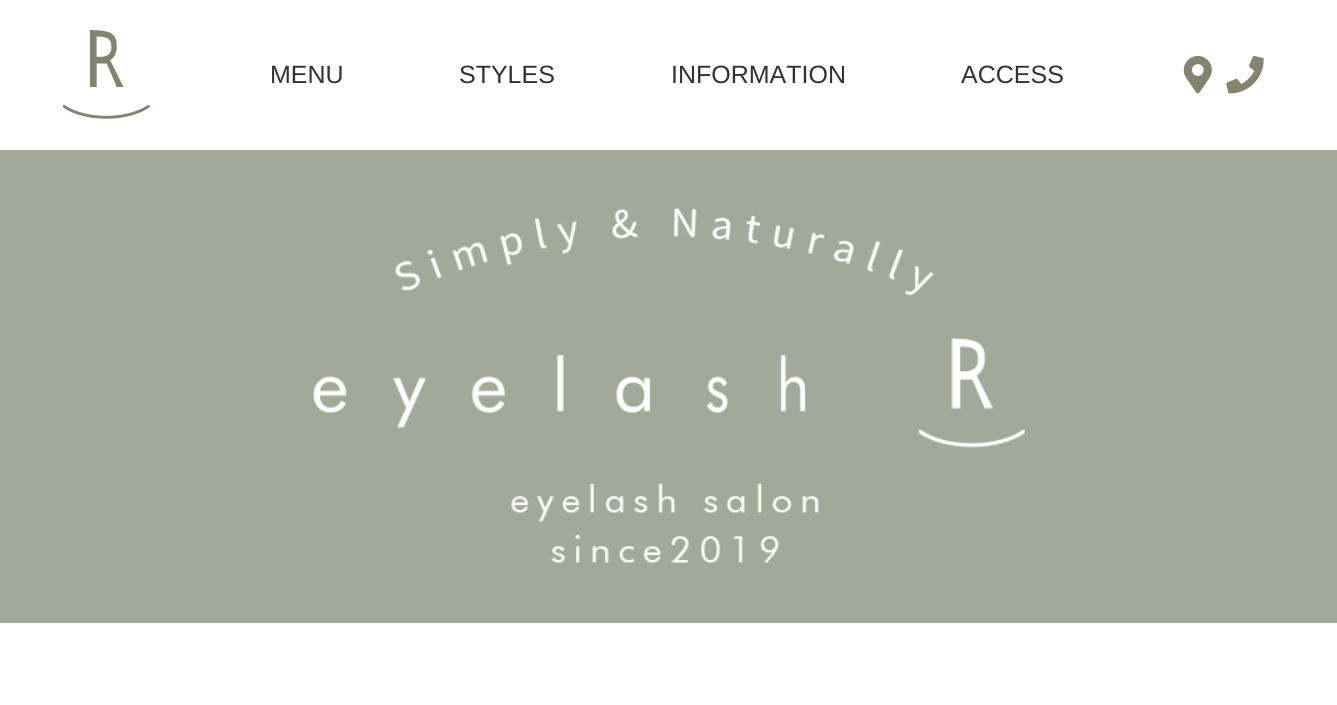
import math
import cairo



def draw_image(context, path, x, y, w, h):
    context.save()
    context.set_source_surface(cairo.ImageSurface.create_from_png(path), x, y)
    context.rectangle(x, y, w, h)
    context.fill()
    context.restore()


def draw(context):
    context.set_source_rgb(1, 1, 1)
    context.paint()
    draw_image(context, "images/1.png", 63, 30, 87, 89)
    draw_image(context, "images/2.png", 1183, 55, 29, 39)
    draw_image(context, "images/3.png", 1226, 56, 38, 38)
    context.set_source_rgb(164 / 255, 168 / 255, 153 / 255)
    context.rectangle(0, 150, 1337, 473)
    context.fill()
    draw_image(context, "images/4.png", 313, 208, 712, 355)
    context.select_font_face("Liberation Sans")
    context.set_font_size(25)
    context.set_source_rgb(50 / 255, 50 / 255, 50 / 255)
    context.move_to(270, 83)
    context.show_text("MENU")
    context.move_to(459, 83)
    context.show_text("STYLES")
    context.move_to(671, 83)
    context.show_text("INFORMATION")
    context.move_to(961, 83)
    context.show_text("ACCESS")


surface = cairo.ImageSurface(cairo.Format.RGB24, 1337, 705)
context = cairo.Context(surface)
options = cairo.FontOptions()
options.set_hint_metrics(cairo.HintMetrics.OFF)
options.set_hint_style(cairo.HintStyle.NONE)
context.set_font_options(options)
context.set_miter_limit(4)
draw(context)
surface.write_to_png("out.png")
